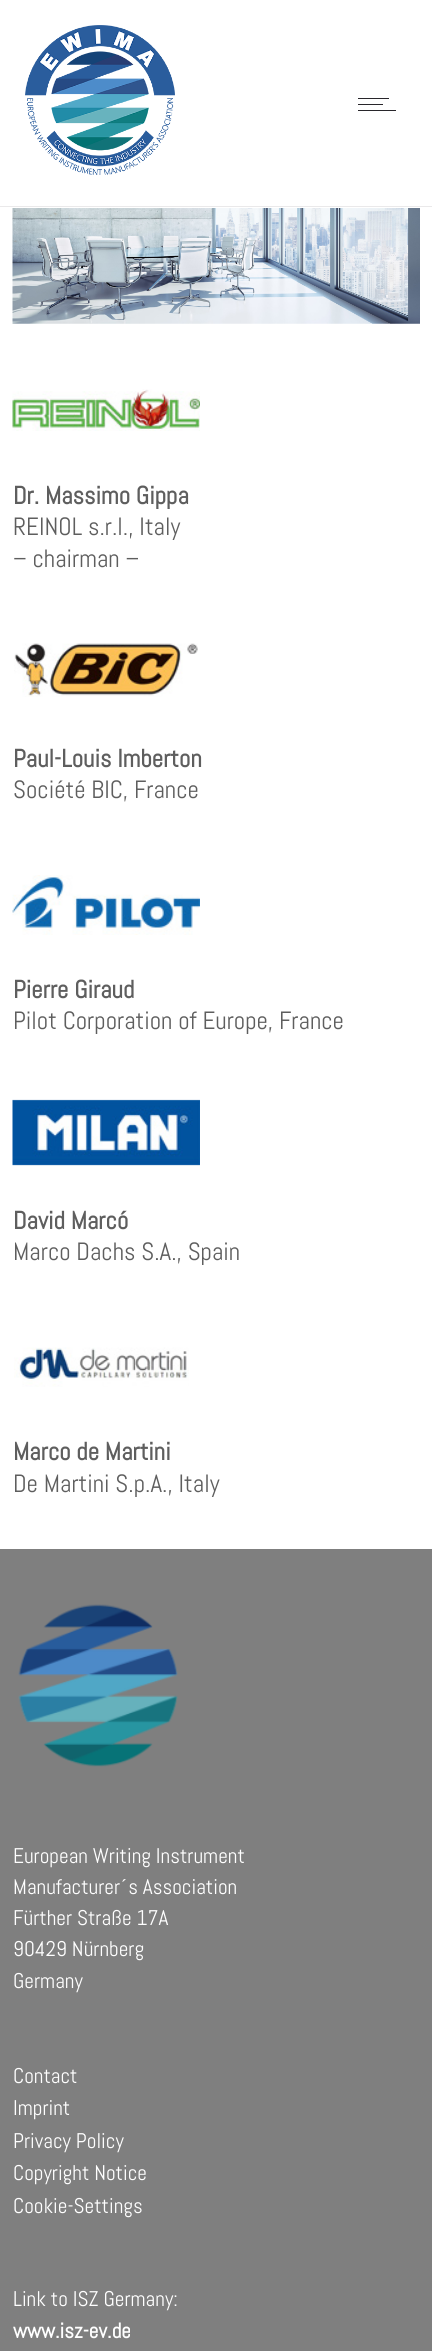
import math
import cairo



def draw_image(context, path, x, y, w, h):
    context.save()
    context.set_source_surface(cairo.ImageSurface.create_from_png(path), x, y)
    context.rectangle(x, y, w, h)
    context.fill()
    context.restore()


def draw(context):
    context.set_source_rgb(1, 1, 1)
    context.paint()
    context.set_source_rgb(234 / 255, 233 / 255, 234 / 255)
    context.rectangle(0, 206, 432, 1)
    context.fill()
    draw_image(context, "images/1.png", 25, 25, 150, 150)
    context.set_source_rgb(40 / 255, 38 / 255, 43 / 255)
    context.rectangle(358, 98, 31, 1)
    context.fill()
    context.rectangle(358, 104, 25, 1)
    context.fill()
    context.rectangle(358, 110, 38, 1)
    context.fill()
    draw_image(context, "images/2.png", 12, 208, 408, 116)
    draw_image(context, "images/3.png", 12, 389, 188, 42)
    draw_image(context, "images/4.png", 14, 643, 184, 54)
    draw_image(context, "images/5.png", 12, 875, 188, 60)
    draw_image(context, "images/6.png", 12, 1099, 188, 67)
    draw_image(context, "images/7.png", 14, 1347, 175, 40)
    context.set_source_rgb(127 / 255, 127 / 255, 127 / 255)
    context.rectangle(0, 1549, 432, 802)
    context.fill()
    draw_image(context, "images/8.png", 18, 1604, 160, 163)
    context.select_font_face("Abel", cairo.FontSlant.NORMAL, cairo.FontWeight.BOLD)
    context.set_font_size(25)
    context.set_source_rgb(94 / 255, 94 / 255, 94 / 255)
    context.move_to(13, 504)
    context.show_text("Dr. Massimo Gippa")
    context.select_font_face("Abel")
    context.move_to(13, 535)
    context.show_text("REINOL s.r.l., Italy")
    context.move_to(13, 567)
    context.show_text("– chairman –")
    context.select_font_face("Abel", cairo.FontSlant.NORMAL, cairo.FontWeight.BOLD)
    context.move_to(13, 767)
    context.show_text("Paul-Louis Imberton")
    context.select_font_face("Abel")
    context.move_to(13, 798)
    context.show_text("Société BIC, France")
    context.select_font_face("Abel", cairo.FontSlant.NORMAL, cairo.FontWeight.BOLD)
    context.move_to(13, 998)
    context.show_text("Pierre Giraud")
    context.select_font_face("Abel")
    context.move_to(13, 1029)
    context.show_text("Pilot Corporation of Europe, France")
    context.select_font_face("Abel", cairo.FontSlant.NORMAL, cairo.FontWeight.BOLD)
    context.move_to(13, 1229)
    context.show_text("David Marcó")
    context.select_font_face("Abel")
    context.move_to(13, 1260)
    context.show_text("Marco Dachs S.A., Spain")
    context.select_font_face("Abel", cairo.FontSlant.NORMAL, cairo.FontWeight.BOLD)
    context.move_to(13, 1460)
    context.show_text("Marco de Martini")
    context.select_font_face("Abel")
    context.move_to(13, 1492)
    context.show_text("De Martini S.p.A., Italy")
    context.set_font_size(21.25)
    context.set_source_rgb(1, 1, 1)
    context.move_to(13, 1863)
    context.show_text("European Writing Instrument")
    context.move_to(13, 1894)
    context.show_text("Manufacturer´s Association")
    context.move_to(13, 1925)
    context.show_text("Fürther Straße 17A")
    context.move_to(13, 1956)
    context.show_text("90429 Nürnberg")
    context.move_to(13, 1988)
    context.show_text("Germany")
    context.move_to(13, 2083)
    context.show_text("Contact")
    context.move_to(13, 2115)
    context.show_text("Imprint")
    context.move_to(13, 2148)
    context.show_text("Privacy Policy")
    context.move_to(13, 2180)
    context.show_text("Copyright Notice")
    context.move_to(13, 2213)
    context.show_text("Cookie-Settings")
    context.move_to(13, 2306)
    context.show_text("Link to ISZ Germany:")
    context.select_font_face("Abel", cairo.FontSlant.NORMAL, cairo.FontWeight.BOLD)
    context.move_to(13, 2338)
    context.show_text("www.isz-ev.de")


surface = cairo.ImageSurface(cairo.Format.RGB24, 432, 2351)
context = cairo.Context(surface)
options = cairo.FontOptions()
options.set_hint_metrics(cairo.HintMetrics.OFF)
options.set_hint_style(cairo.HintStyle.NONE)
context.set_font_options(options)
context.set_miter_limit(4)
draw(context)
surface.write_to_png("out.png")
